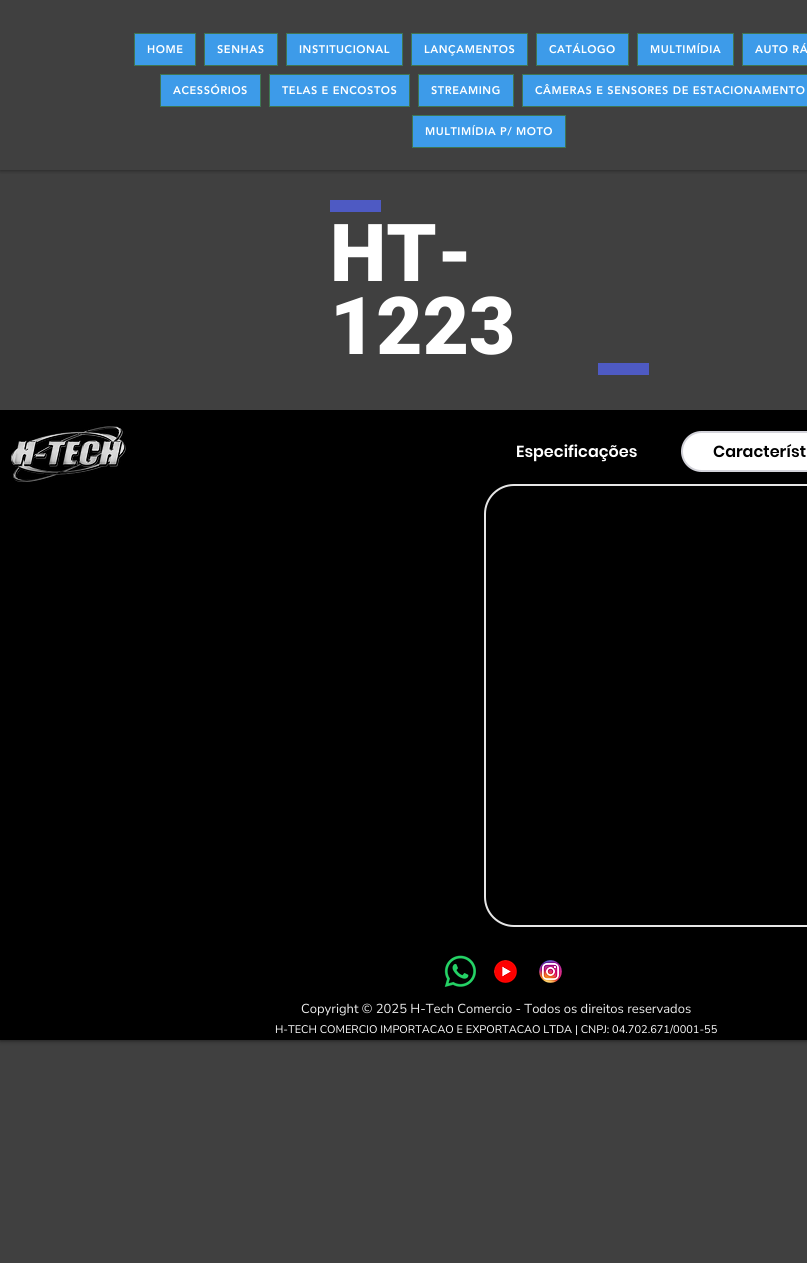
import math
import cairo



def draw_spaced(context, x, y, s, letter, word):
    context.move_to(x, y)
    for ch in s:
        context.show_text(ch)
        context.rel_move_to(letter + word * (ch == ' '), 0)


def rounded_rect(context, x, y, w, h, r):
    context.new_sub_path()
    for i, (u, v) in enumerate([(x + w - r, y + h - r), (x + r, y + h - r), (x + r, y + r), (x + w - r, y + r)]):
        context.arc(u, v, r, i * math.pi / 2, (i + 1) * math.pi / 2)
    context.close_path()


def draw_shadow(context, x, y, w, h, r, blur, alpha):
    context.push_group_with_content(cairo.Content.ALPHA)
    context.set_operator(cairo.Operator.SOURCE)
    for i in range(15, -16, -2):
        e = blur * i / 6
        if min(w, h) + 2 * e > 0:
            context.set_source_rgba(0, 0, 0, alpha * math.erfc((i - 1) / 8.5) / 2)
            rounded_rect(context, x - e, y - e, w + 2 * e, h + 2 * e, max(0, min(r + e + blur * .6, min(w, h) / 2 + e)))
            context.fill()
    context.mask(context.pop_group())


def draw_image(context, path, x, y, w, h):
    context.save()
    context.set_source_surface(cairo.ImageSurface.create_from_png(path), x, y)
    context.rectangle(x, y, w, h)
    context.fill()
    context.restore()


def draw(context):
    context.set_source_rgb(64 / 255, 64 / 255, 64 / 255)
    context.paint()
    context.save()
    context.rectangle(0, 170, 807, 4)
    context.clip()
    context.set_source_rgb(0, 0, 0)
    draw_shadow(context, 0, 0, 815, 170, 0, 2.5, 0.5)
    context.restore()
    context.set_source_rgb(61 / 255, 155 / 255, 233 / 255)
    context.rectangle(134.5, 33.5, 61, 32)
    context.fill_preserve()
    context.set_source_rgb(63 / 255, 118 / 255, 82 / 255)
    context.set_line_width(1)
    context.stroke()
    context.set_source_rgb(61 / 255, 155 / 255, 233 / 255)
    context.rectangle(204.5, 33.5, 73, 32)
    context.fill_preserve()
    context.set_source_rgb(63 / 255, 118 / 255, 82 / 255)
    context.stroke()
    context.set_source_rgb(61 / 255, 155 / 255, 233 / 255)
    context.rectangle(286.5, 33.5, 116, 32)
    context.fill_preserve()
    context.set_source_rgb(63 / 255, 118 / 255, 82 / 255)
    context.stroke()
    context.set_source_rgb(61 / 255, 155 / 255, 233 / 255)
    context.rectangle(411.5, 33.5, 116, 32)
    context.fill_preserve()
    context.set_source_rgb(63 / 255, 118 / 255, 82 / 255)
    context.stroke()
    context.set_source_rgb(61 / 255, 155 / 255, 233 / 255)
    context.rectangle(536.5, 33.5, 92, 32)
    context.fill_preserve()
    context.set_source_rgb(63 / 255, 118 / 255, 82 / 255)
    context.stroke()
    context.set_source_rgb(61 / 255, 155 / 255, 233 / 255)
    context.rectangle(637.5, 33.5, 96, 32)
    context.fill_preserve()
    context.set_source_rgb(63 / 255, 118 / 255, 82 / 255)
    context.stroke()
    context.set_source_rgb(61 / 255, 155 / 255, 233 / 255)
    context.rectangle(742.5, 33.5, 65, 32)
    context.fill_preserve()
    context.set_source_rgb(63 / 255, 118 / 255, 82 / 255)
    context.stroke()
    context.set_source_rgb(61 / 255, 155 / 255, 233 / 255)
    context.rectangle(160.5, 74.5, 100, 32)
    context.fill_preserve()
    context.set_source_rgb(63 / 255, 118 / 255, 82 / 255)
    context.stroke()
    context.set_source_rgb(61 / 255, 155 / 255, 233 / 255)
    context.rectangle(269.5, 74.5, 140, 32)
    context.fill_preserve()
    context.set_source_rgb(63 / 255, 118 / 255, 82 / 255)
    context.stroke()
    context.set_source_rgb(61 / 255, 155 / 255, 233 / 255)
    context.rectangle(418.5, 74.5, 95, 32)
    context.fill_preserve()
    context.set_source_rgb(63 / 255, 118 / 255, 82 / 255)
    context.stroke()
    context.set_source_rgb(61 / 255, 155 / 255, 233 / 255)
    context.rectangle(522.5, 74.5, 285, 32)
    context.fill_preserve()
    context.set_source_rgb(63 / 255, 118 / 255, 82 / 255)
    context.stroke()
    context.set_source_rgb(61 / 255, 155 / 255, 233 / 255)
    context.rectangle(412.5, 115.5, 153, 32)
    context.fill_preserve()
    context.set_source_rgb(63 / 255, 118 / 255, 82 / 255)
    context.stroke()
    context.set_source_rgb(78 / 255, 90 / 255, 195 / 255)
    context.rectangle(330, 200, 51, 12)
    context.fill()
    context.rectangle(598, 363, 51, 12)
    context.fill()
    context.set_source_rgb(0, 0, 0)
    context.rectangle(0, 410, 807, 527)
    context.fill()
    draw_image(context, "images/1.png", 10, 426, 116, 56)
    context.set_source_rgb(1, 1, 1)
    rounded_rect(context, 682, 432, 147, 39, 19.5)
    context.fill_preserve()
    context.set_source_rgb(211 / 255, 211 / 255, 218 / 255)
    context.set_line_width(2)
    context.stroke()
    rounded_rect(context, 485, 485, 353, 441, 29)
    context.set_source_rgb(230 / 255, 230 / 255, 230 / 255)
    context.stroke()
    context.set_source_rgb(0, 0, 0)
    draw_shadow(context, 0, 937, 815, 103, 0, 2.5, 0.7)
    context.set_source_rgb(0, 0, 0)
    context.rectangle(0, 937, 807, 103)
    context.fill()
    draw_image(context, "images/2.png", 444, 955, 32, 32)
    draw_image(context, "images/3.png", 494, 960, 23, 23)
    draw_image(context, "images/4.png", 539, 960, 23, 23)
    context.select_font_face("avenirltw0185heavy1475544 Black")
    context.set_font_size(11)
    context.set_source_rgb(1, 1, 1)
    draw_spaced(context, 147, 53, "HOME", 0.55, 0)
    draw_spaced(context, 217, 53, "SENHAS", 0.55, 0)
    draw_spaced(context, 299, 53, "INSTITUCIONAL", 0.55, 0)
    draw_spaced(context, 424, 53, "LANÇAMENTOS", 0.55, 0)
    draw_spaced(context, 549, 53, "CATÁLOGO", 0.55, 0)
    draw_spaced(context, 650, 53, "MULTIMÍDIA", 0.55, 0)
    draw_spaced(context, 755, 53, "AUTO RÁ", 0.55, 0)
    draw_spaced(context, 173, 94, "ACESSÓRIOS", 0.55, 0)
    draw_spaced(context, 282, 94, "TELAS E ENCOSTOS", 0.55, 0)
    draw_spaced(context, 431, 94, "STREAMING", 0.55, 0)
    draw_spaced(context, 535, 94, "CÂMERAS E SENSORES DE ESTACIONAMENTO", 0.55, 0)
    draw_spaced(context, 425, 135, "MULTIMÍDIA P/ MOTO", 0.55, 0)
    context.select_font_face("Roboto Black")
    context.set_font_size(80)
    context.move_to(330, 281)
    context.show_text("HT-")
    context.move_to(330, 354)
    context.show_text("1223")
    context.select_font_face("Poppins SemiBold")
    context.set_font_size(16)
    context.move_to(516, 457)
    context.show_text("Especificações")
    context.set_source_rgb(0, 0, 0)
    context.move_to(713, 457)
    context.show_text("Característ")
    context.select_font_face("Nunito Sans")
    context.set_font_size(13)
    context.set_source_rgb(237 / 255, 237 / 255, 237 / 255)
    context.move_to(301, 1013)
    context.show_text("Copyright © 2025 H-Tech Comercio - Todos os direitos reservados")
    context.set_font_size(11)
    context.set_source_rgb(1, 1, 1)
    context.move_to(275, 1033)
    context.show_text("H-TECH COMERCIO IMPORTACAO E EXPORTACAO LTDA | CNPJ: 04.702.671/0001-55")


surface = cairo.ImageSurface(cairo.Format.RGB24, 807, 1263)
context = cairo.Context(surface)
options = cairo.FontOptions()
options.set_hint_metrics(cairo.HintMetrics.OFF)
options.set_hint_style(cairo.HintStyle.NONE)
context.set_font_options(options)
context.set_miter_limit(4)
draw(context)
surface.write_to_png("out.png")
